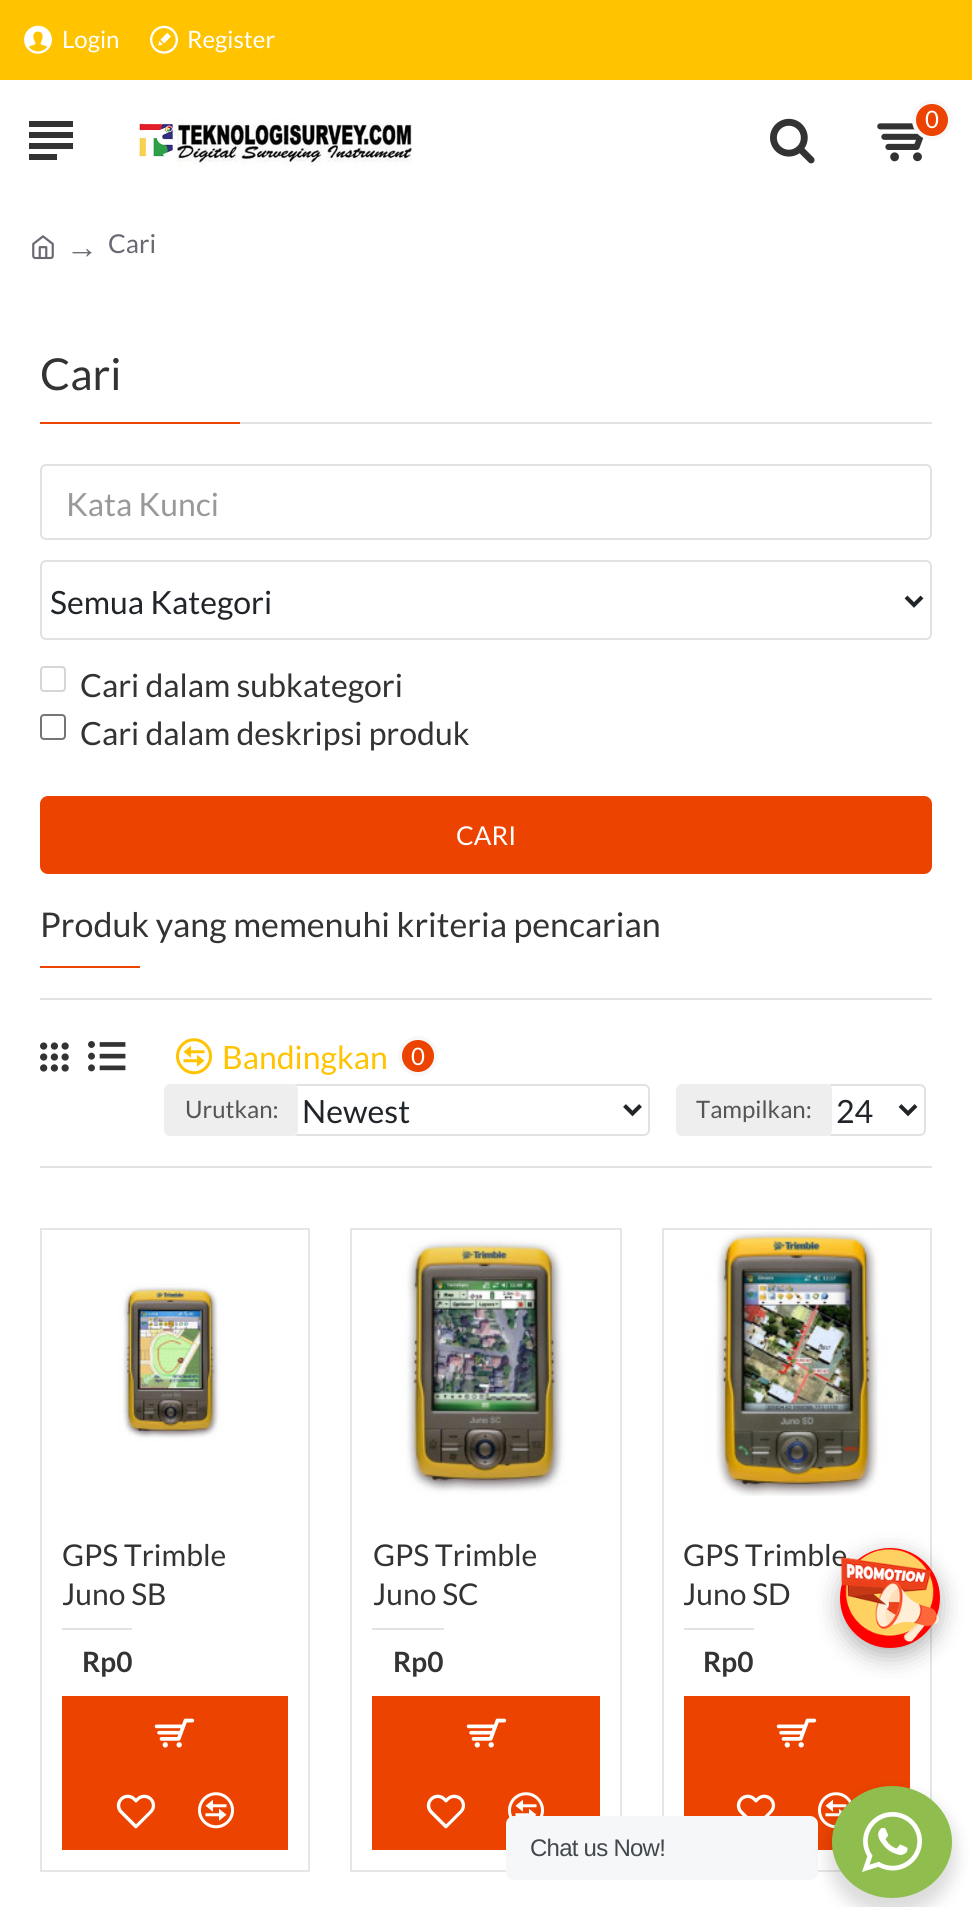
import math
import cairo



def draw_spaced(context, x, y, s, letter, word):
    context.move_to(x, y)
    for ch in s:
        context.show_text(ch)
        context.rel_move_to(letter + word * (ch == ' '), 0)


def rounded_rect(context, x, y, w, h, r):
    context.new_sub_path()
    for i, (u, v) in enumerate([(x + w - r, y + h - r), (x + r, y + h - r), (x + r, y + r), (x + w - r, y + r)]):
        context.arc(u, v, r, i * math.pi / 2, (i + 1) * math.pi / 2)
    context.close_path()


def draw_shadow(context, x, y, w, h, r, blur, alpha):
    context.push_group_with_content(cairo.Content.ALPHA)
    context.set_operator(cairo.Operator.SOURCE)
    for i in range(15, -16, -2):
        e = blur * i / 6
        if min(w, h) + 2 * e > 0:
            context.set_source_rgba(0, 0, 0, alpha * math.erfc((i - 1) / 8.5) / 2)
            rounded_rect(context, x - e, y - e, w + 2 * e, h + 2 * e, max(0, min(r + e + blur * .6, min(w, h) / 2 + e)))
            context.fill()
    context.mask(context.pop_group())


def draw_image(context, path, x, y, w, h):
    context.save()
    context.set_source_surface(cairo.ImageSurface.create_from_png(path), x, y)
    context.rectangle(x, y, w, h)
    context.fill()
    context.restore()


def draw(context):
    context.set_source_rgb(1, 1, 1)
    context.paint()
    context.set_source_rgb(1, 195 / 255, 0)
    context.rectangle(0, 0, 972, 80)
    context.fill()
    draw_image(context, "images/1.png", 24, 25, 28, 29)
    draw_image(context, "images/2.png", 150, 25, 28, 29)
    draw_image(context, "images/3.png", 138, 119, 274, 47)
    context.set_source_rgb(51 / 255, 51 / 255, 51 / 255)
    context.new_path()
    context.move_to(29, 121)
    context.line_to(73, 121)
    context.line_to(73, 127)
    context.line_to(29, 127)
    context.close_path()
    context.move_to(29, 149)
    context.line_to(29, 143)
    context.line_to(73, 143)
    context.line_to(73, 149)
    context.close_path()
    context.move_to(73, 132)
    context.line_to(73, 138)
    context.line_to(29, 138)
    context.line_to(29, 132)
    context.close_path()
    context.move_to(57, 154)
    context.line_to(57, 160)
    context.line_to(29, 160)
    context.line_to(29, 154)
    context.close_path()
    context.fill()
    draw_image(context, "images/4.png", 770, 118, 45, 46)
    draw_image(context, "images/5.png", 877, 123, 47, 39)
    context.set_source_rgb(236 / 255, 67 / 255, 0)
    context.arc(932, 120, 18, 0, 2 * math.pi)
    context.fill_preserve()
    context.set_source_rgb(248 / 255, 248 / 255, 248 / 255)
    context.set_line_width(4)
    context.stroke()
    draw_image(context, "images/6.png", 32, 235, 22, 25)
    context.set_source_rgb(226 / 255, 226 / 255, 226 / 255)
    context.rectangle(240, 422, 692, 2)
    context.fill()
    context.set_source_rgb(236 / 255, 67 / 255, 0)
    context.rectangle(40, 422, 200, 2)
    context.fill()
    rounded_rect(context, 41, 465, 890, 74, 5)
    context.set_source_rgb(226 / 255, 226 / 255, 226 / 255)
    context.set_line_width(2)
    context.stroke()
    rounded_rect(context, 41, 561, 890, 78, 5)
    context.stroke()
    context.new_path()
    context.move_to(906, 597)
    context.line_to(914, 605)
    context.line_to(922, 597)
    context.set_source_rgb(33 / 255, 37 / 255, 41 / 255)
    context.set_line_width(4)
    context.stroke()
    rounded_rect(context, 41, 667, 24, 24, 3)
    context.set_source_rgb(214 / 255, 214 / 255, 214 / 255)
    context.set_line_width(2)
    context.stroke()
    rounded_rect(context, 41, 715, 24, 24, 3)
    context.set_source_rgb(118 / 255, 118 / 255, 118 / 255)
    context.stroke()
    context.set_source_rgb(236 / 255, 67 / 255, 0)
    rounded_rect(context, 40, 796, 892, 78, 8)
    context.fill()
    context.rectangle(40, 966, 100, 2)
    context.fill()
    context.set_source_rgb(226 / 255, 226 / 255, 226 / 255)
    context.rectangle(40, 998, 892, 2)
    context.fill()
    context.rectangle(40, 1166, 892, 2)
    context.fill()
    draw_image(context, "images/7.png", 40, 1042, 29, 30)
    draw_image(context, "images/8.png", 88, 1041, 38, 31)
    draw_image(context, "images/9.png", 176, 1038, 36, 37)
    context.set_source_rgb(236 / 255, 67 / 255, 0)
    context.arc(418, 1056, 18, 0, 2 * math.pi)
    context.fill_preserve()
    context.set_source_rgb(248 / 255, 248 / 255, 248 / 255)
    context.set_line_width(4)
    context.stroke()
    rounded_rect(context, 293, 1085, 356, 50, 5)
    context.set_source_rgb(226 / 255, 226 / 255, 226 / 255)
    context.set_line_width(2)
    context.stroke()
    context.set_source_rgb(238 / 255, 238 / 255, 238 / 255)
    rounded_rect(context, 164, 1084, 134, 52, 6)
    context.fill()
    context.new_path()
    context.move_to(624.5, 1105.5)
    context.line_to(632.5, 1113.5)
    context.line_to(640.5, 1105.5)
    context.set_source_rgb(33 / 255, 37 / 255, 41 / 255)
    context.set_line_width(4)
    context.stroke()
    rounded_rect(context, 827, 1085, 98, 50, 5)
    context.set_source_rgb(226 / 255, 226 / 255, 226 / 255)
    context.set_line_width(2)
    context.stroke()
    context.set_source_rgb(238 / 255, 238 / 255, 238 / 255)
    rounded_rect(context, 676, 1084, 156, 52, 6)
    context.fill()
    context.new_path()
    context.move_to(900, 1105.5)
    context.line_to(908, 1113.5)
    context.line_to(916, 1105.5)
    context.set_source_rgb(33 / 255, 37 / 255, 41 / 255)
    context.set_line_width(4)
    context.stroke()
    context.rectangle(41, 1229, 268, 642)
    context.set_source_rgb(230 / 255, 230 / 255, 230 / 255)
    context.set_line_width(2)
    context.stroke()
    draw_image(context, "images/10.png", 42, 1230, 266, 266)
    context.set_source_rgb(226 / 255, 226 / 255, 226 / 255)
    context.rectangle(62, 1628, 70, 2)
    context.fill()
    context.set_source_rgb(236 / 255, 67 / 255, 0)
    context.rectangle(62, 1696, 226, 154)
    context.fill()
    draw_image(context, "images/11.png", 154, 1718, 41, 30)
    draw_image(context, "images/12.png", 116, 1794, 40, 35)
    draw_image(context, "images/13.png", 198, 1792, 36, 37)
    context.rectangle(351, 1229, 270, 642)
    context.set_source_rgb(230 / 255, 230 / 255, 230 / 255)
    context.stroke()
    draw_image(context, "images/14.png", 352, 1230, 268, 266)
    context.set_source_rgb(226 / 255, 226 / 255, 226 / 255)
    context.rectangle(372, 1628, 72, 2)
    context.fill()
    context.set_source_rgb(236 / 255, 67 / 255, 0)
    context.rectangle(372, 1696, 228, 154)
    context.fill()
    draw_image(context, "images/11.png", 466, 1718, 41, 30)
    draw_image(context, "images/12.png", 426, 1794, 40, 35)
    draw_image(context, "images/15.png", 508, 1792, 36, 26)
    context.rectangle(663, 1229, 268, 642)
    context.set_source_rgb(230 / 255, 230 / 255, 230 / 255)
    context.stroke()
    draw_image(context, "images/16.png", 664, 1230, 266, 266)
    context.set_source_rgb(226 / 255, 226 / 255, 226 / 255)
    context.rectangle(684, 1628, 70, 2)
    context.fill()
    context.set_source_rgb(236 / 255, 67 / 255, 0)
    context.rectangle(684, 1696, 226, 154)
    context.fill()
    draw_image(context, "images/11.png", 776, 1718, 41, 30)
    draw_image(context, "images/17.png", 736, 1794, 40, 22)
    draw_image(context, "images/18.png", 818, 1792, 34, 37)
    context.set_source_rgb(0, 0, 0)
    draw_shadow(context, 840, 1556, 100, 100, 50, 12, 0.3)
    context.set_source_rgb(245 / 255, 247 / 255, 249 / 255)
    rounded_rect(context, 506, 1816, 312, 64, 8)
    context.fill()
    context.set_source_rgb(0, 0, 0)
    draw_shadow(context, 828, 1794, 128, 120, 60, 8, 0.14)
    context.set_source_rgb(144 / 255, 190 / 255, 78 / 255)
    context.new_path()
    context.move_to(892, 1786)
    context.curve_to(925, 1786, 952, 1811, 952, 1842)
    context.curve_to(952, 1873, 925, 1898, 892, 1898)
    context.curve_to(859, 1898, 832, 1873, 832, 1842)
    context.curve_to(832, 1811, 859, 1786, 892, 1786)
    context.close_path()
    context.fill()
    draw_image(context, "images/20.png", 862, 1812, 60, 60)
    context.select_font_face("Lato")
    context.set_font_size(24)
    context.set_source_rgb(1, 1, 1)
    context.move_to(62, 48)
    context.show_text("Login")
    context.move_to(187, 48)
    context.show_text("Register")
    context.move_to(925, 128)
    context.show_text("0")
    context.select_font_face("Liberation Serif")
    context.set_font_size(32)
    context.set_source_rgb(105 / 255, 105 / 255, 115 / 255)
    context.move_to(66, 258)
    context.show_text("→")
    context.select_font_face("Lato")
    context.set_font_size(26)
    context.move_to(108, 253)
    context.show_text("Cari")
    context.set_font_size(44)
    context.set_source_rgb(51 / 255, 51 / 255, 51 / 255)
    context.move_to(40, 390)
    context.show_text("Cari")
    context.set_font_size(32)
    context.set_source_rgb(153 / 255, 153 / 255, 153 / 255)
    context.move_to(66, 516)
    context.show_text("Kata Kunci")
    context.set_source_rgb(33 / 255, 37 / 255, 41 / 255)
    context.move_to(50, 614)
    context.show_text("Semua Kategori")
    context.set_source_rgb(51 / 255, 51 / 255, 51 / 255)
    context.move_to(80, 697)
    context.show_text("Cari dalam subkategori")
    context.move_to(80, 745)
    context.show_text("Cari dalam deskripsi produk")
    context.set_font_size(26)
    context.set_source_rgb(1, 1, 1)
    context.move_to(456, 845)
    context.show_text("CARI")
    context.set_font_size(34)
    context.set_source_rgb(51 / 255, 51 / 255, 51 / 255)
    context.move_to(40, 937)
    context.show_text("Produk yang memenuhi kriteria pencarian")
    context.set_font_size(32)
    context.set_source_rgb(1, 195 / 255, 0)
    context.move_to(222, 1069)
    context.show_text("Bandingkan")
    context.set_font_size(24)
    context.set_source_rgb(1, 1, 1)
    context.move_to(411, 1065)
    context.show_text("0")
    context.set_source_rgb(85 / 255, 85 / 255, 85 / 255)
    context.move_to(185, 1118)
    context.show_text("Urutkan:")
    context.set_font_size(32)
    context.set_source_rgb(33 / 255, 37 / 255, 41 / 255)
    context.move_to(302, 1123)
    context.show_text("Newest")
    context.set_font_size(24)
    context.set_source_rgb(85 / 255, 85 / 255, 85 / 255)
    context.move_to(696, 1118)
    context.show_text("Tampilkan:")
    context.set_font_size(32)
    context.set_source_rgb(33 / 255, 37 / 255, 41 / 255)
    context.move_to(836, 1123)
    context.show_text("24")
    context.set_font_size(30)
    context.set_source_rgb(51 / 255, 51 / 255, 51 / 255)
    context.move_to(62, 1566)
    context.show_text("GPS Trimble")
    context.move_to(62, 1605)
    context.show_text("Juno SB")
    context.select_font_face("Lato", cairo.FontSlant.NORMAL, cairo.FontWeight.BOLD)
    context.set_font_size(28)
    context.move_to(82, 1672)
    context.show_text("Rp0")
    context.select_font_face("Lato")
    context.set_font_size(30)
    context.move_to(373, 1566)
    context.show_text("GPS Trimble")
    context.move_to(373, 1605)
    context.show_text("Juno SC")
    context.select_font_face("Lato", cairo.FontSlant.NORMAL, cairo.FontWeight.BOLD)
    context.set_font_size(28)
    context.move_to(393, 1672)
    context.show_text("Rp0")
    context.select_font_face("Lato")
    context.set_font_size(30)
    context.move_to(683, 1566)
    context.show_text("GPS Trimble")
    context.move_to(683, 1605)
    context.show_text("Juno SD")
    context.select_font_face("Lato", cairo.FontSlant.NORMAL, cairo.FontWeight.BOLD)
    context.set_font_size(28)
    context.move_to(703, 1672)
    context.show_text("Rp0")
    context.set_source_rgb(1, 0, 0)
    context.new_path()
    context.arc(890, 1598, 50, 0, 2 * math.pi)
    context.fill()
    draw_image(context, "images/19.png", 840, 1549, 99, 93)
    context.select_font_face("Liberation Sans")
    context.set_font_size(24)
    context.set_source_rgb(67 / 255, 71 / 255, 78 / 255)
    draw_spaced(context, 530, 1856, "Chat us Now!", -0.75, 0)


surface = cairo.ImageSurface(cairo.Format.RGB24, 972, 1907)
context = cairo.Context(surface)
options = cairo.FontOptions()
options.set_hint_metrics(cairo.HintMetrics.OFF)
options.set_hint_style(cairo.HintStyle.NONE)
context.set_font_options(options)
context.set_miter_limit(4)
draw(context)
surface.write_to_png("out.png")
